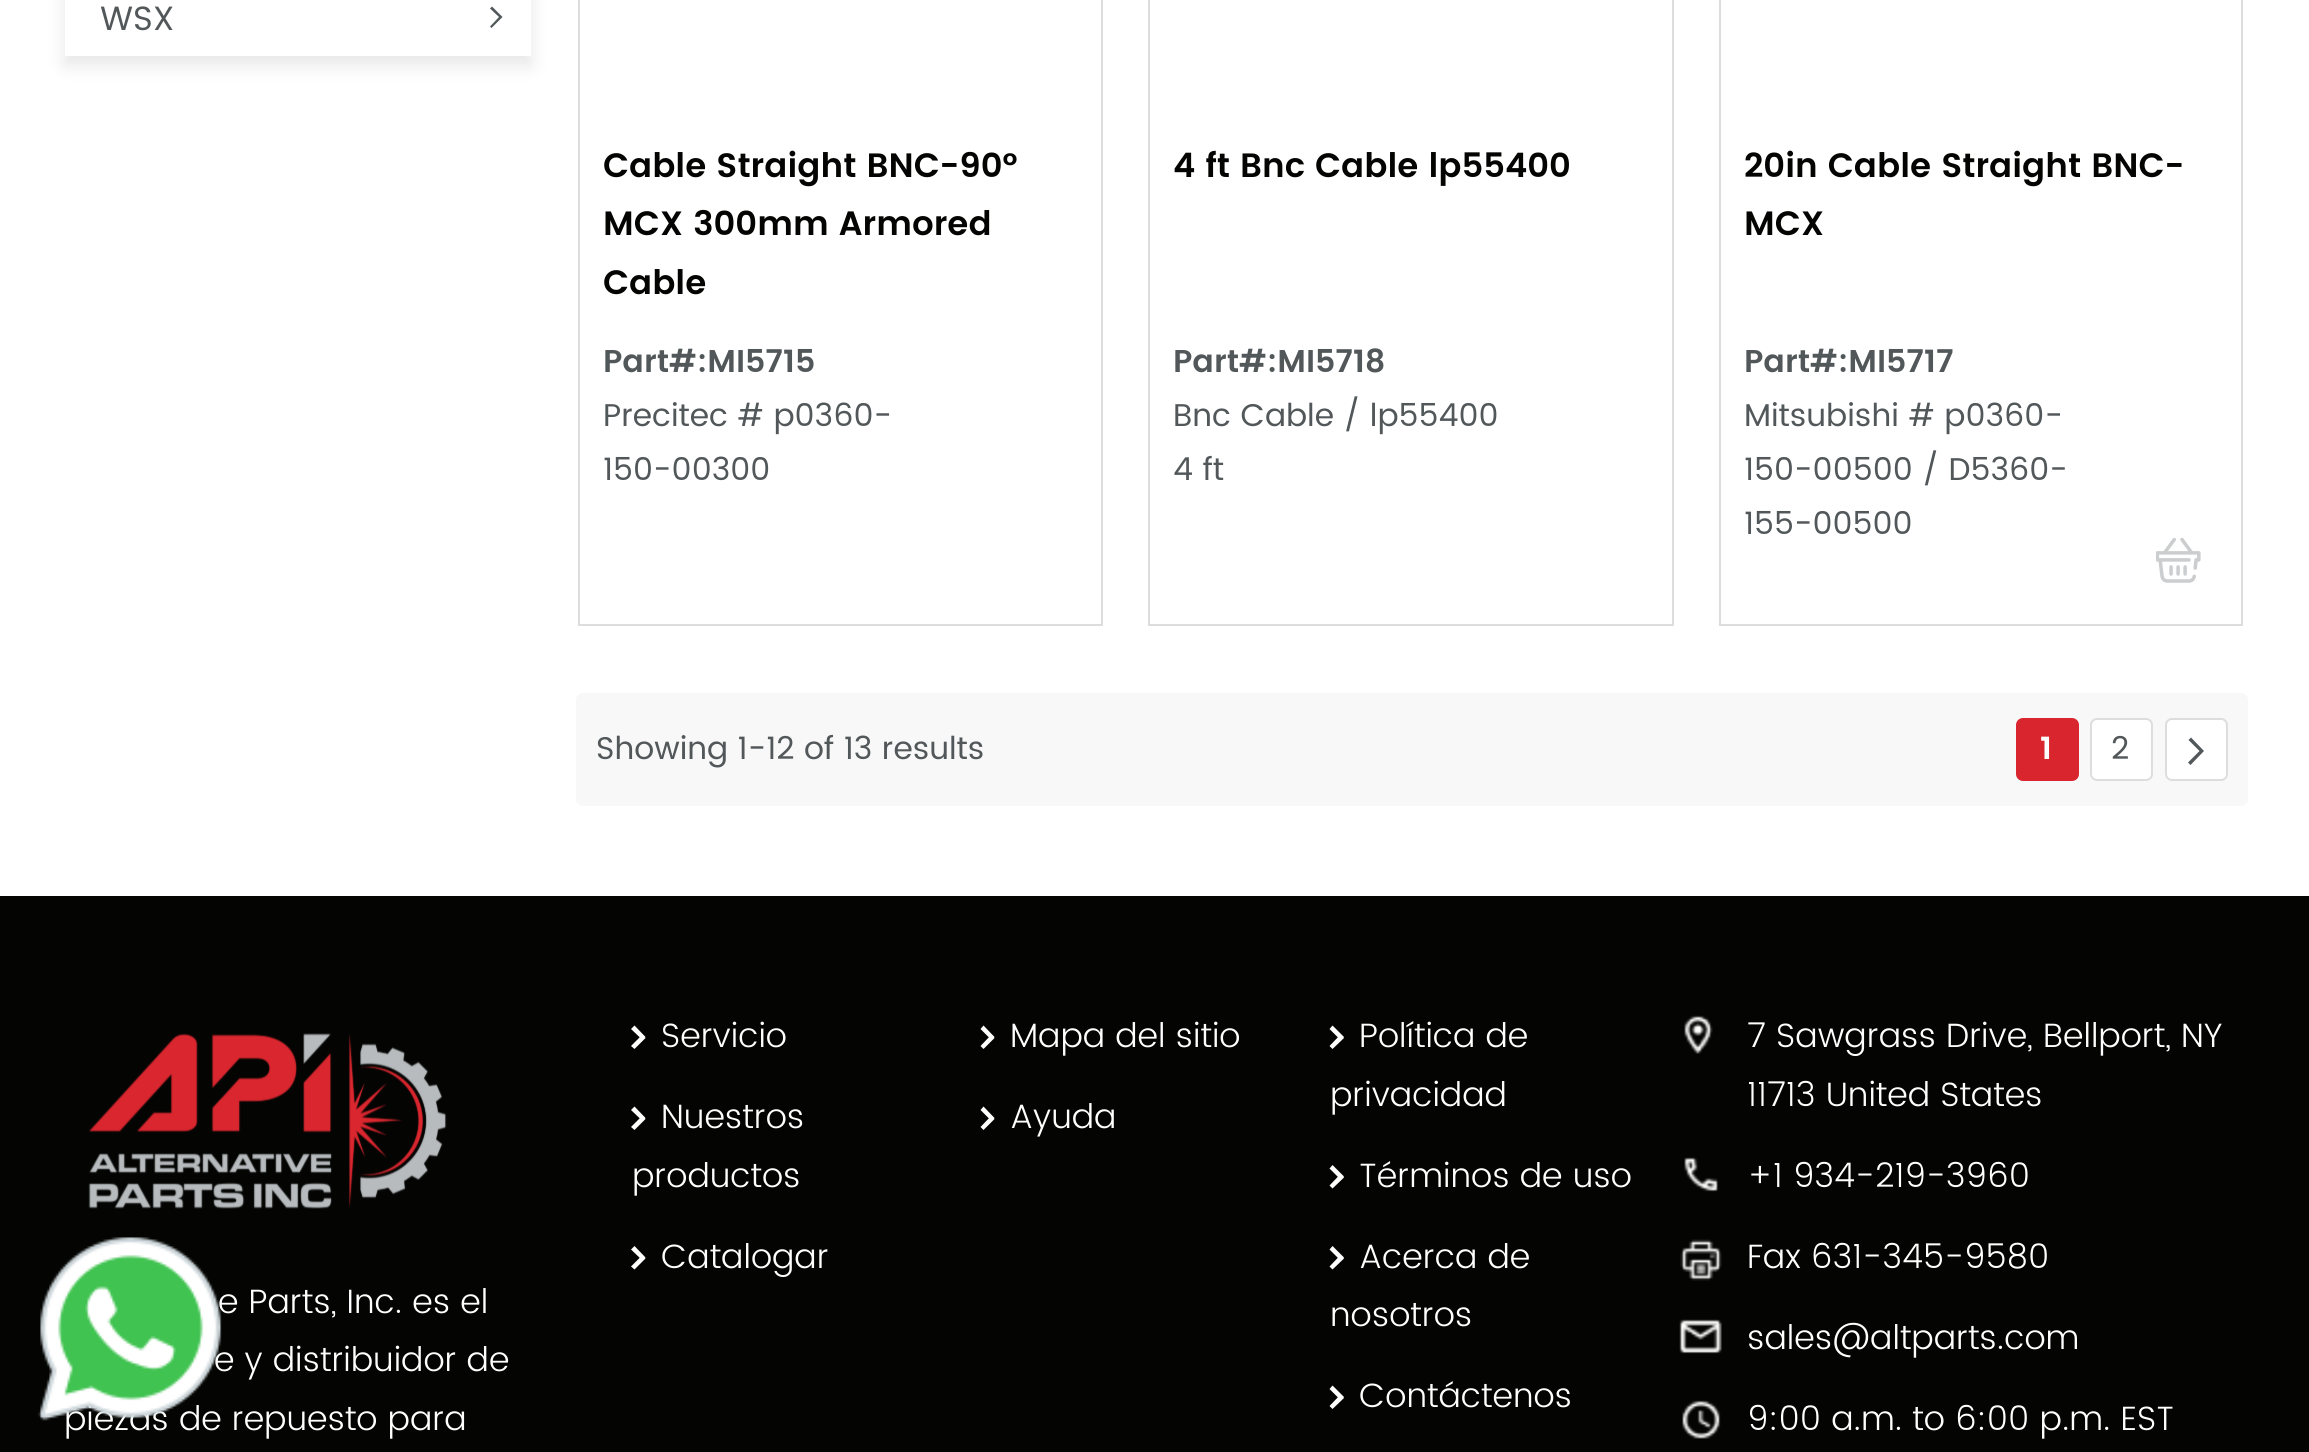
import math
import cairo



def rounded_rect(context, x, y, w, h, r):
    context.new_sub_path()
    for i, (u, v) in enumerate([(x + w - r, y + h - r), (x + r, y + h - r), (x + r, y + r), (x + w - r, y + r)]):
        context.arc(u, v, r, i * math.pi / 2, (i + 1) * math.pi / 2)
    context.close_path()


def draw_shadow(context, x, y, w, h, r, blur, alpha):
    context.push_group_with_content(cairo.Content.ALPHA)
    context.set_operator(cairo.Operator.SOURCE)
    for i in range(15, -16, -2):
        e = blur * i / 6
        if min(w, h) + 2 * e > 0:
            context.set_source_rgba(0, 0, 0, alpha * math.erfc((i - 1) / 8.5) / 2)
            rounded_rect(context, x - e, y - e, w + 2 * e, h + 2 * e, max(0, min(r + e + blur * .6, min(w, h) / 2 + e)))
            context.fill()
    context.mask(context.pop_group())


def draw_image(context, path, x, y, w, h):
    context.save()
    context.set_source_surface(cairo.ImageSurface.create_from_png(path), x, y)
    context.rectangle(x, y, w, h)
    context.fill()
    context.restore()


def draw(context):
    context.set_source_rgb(1, 1, 1)
    context.paint()
    context.save()
    context.set_fill_rule(cairo.FillRule.EVEN_ODD)
    context.new_path()
    context.move_to(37, 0)
    context.line_to(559, 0)
    context.line_to(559, 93)
    context.line_to(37, 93)
    context.close_path()
    context.move_to(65, -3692)
    context.line_to(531, -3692)
    context.line_to(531, 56)
    context.line_to(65, 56)
    context.close_path()
    context.clip()
    context.set_source_rgb(0, 0, 0)
    draw_shadow(context, 65, -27, 466, 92, 0, 9, 0.1)
    context.restore()
    context.set_source_rgb(82 / 255, 87 / 255, 90 / 255)
    context.new_path()
    context.move_to(502.5, 17)
    context.line_to(492, 6.5)
    context.line_to(490, 8.5)
    context.line_to(499, 17)
    context.line_to(490, 26.5)
    context.line_to(491.5, 28)
    context.close_path()
    context.fill()
    context.rectangle(579, -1, 523, 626)
    context.set_source_rgb(219 / 255, 221 / 255, 222 / 255)
    context.stroke()
    context.rectangle(1149, -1, 524, 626)
    context.stroke()
    context.rectangle(1720, -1, 522, 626)
    context.stroke()
    draw_image(context, "images/1.png", 2156, 538, 45, 45)
    context.set_source_rgb(248 / 255, 248 / 255, 248 / 255)
    rounded_rect(context, 576, 693, 1672, 113, 7)
    context.fill()
    context.set_source_rgb(216 / 255, 37 / 255, 46 / 255)
    rounded_rect(context, 2017, 719, 61, 61, 6)
    context.fill_preserve()
    context.stroke()
    context.set_source_rgb(1, 1, 1)
    rounded_rect(context, 2091, 719, 61, 61, 6)
    context.fill_preserve()
    context.set_source_rgb(221 / 255, 221 / 255, 221 / 255)
    context.stroke()
    context.set_source_rgb(1, 1, 1)
    rounded_rect(context, 2166, 719, 61, 61, 6)
    context.fill_preserve()
    context.set_source_rgb(221 / 255, 221 / 255, 221 / 255)
    context.stroke()
    context.set_source_rgb(82 / 255, 87 / 255, 90 / 255)
    context.new_path()
    context.move_to(2204, 751)
    context.line_to(2191, 737.5)
    context.line_to(2188.5, 740)
    context.line_to(2199.5, 751)
    context.line_to(2188, 762.5)
    context.line_to(2190.5, 765)
    context.close_path()
    context.fill()
    context.set_source_rgb(4 / 255, 5 / 255, 3 / 255)
    context.rectangle(0, 896, 2309, 556)
    context.fill()
    draw_image(context, "images/2.png", 88, 1033, 359, 176)
    context.set_source_rgb(1, 1, 1)
    context.new_path()
    context.move_to(645.5, 1037)
    context.line_to(642.5, 1040)
    context.line_to(631, 1029)
    context.line_to(634.5, 1025.5)
    context.close_path()
    context.fill()
    context.new_path()
    context.move_to(642.5, 1034.5)
    context.line_to(645.5, 1038)
    context.line_to(634.5, 1049)
    context.line_to(631, 1046)
    context.close_path()
    context.fill()
    context.new_path()
    context.move_to(645.5, 1118)
    context.line_to(642.5, 1121)
    context.line_to(631, 1110)
    context.line_to(634.5, 1106.5)
    context.close_path()
    context.fill()
    context.new_path()
    context.move_to(642.5, 1115.5)
    context.line_to(645.5, 1119)
    context.line_to(634.5, 1130)
    context.line_to(631, 1127)
    context.close_path()
    context.fill()
    context.new_path()
    context.move_to(645.5, 1257.5)
    context.line_to(642.5, 1260.5)
    context.line_to(631, 1249.5)
    context.line_to(634.5, 1246)
    context.close_path()
    context.fill()
    context.new_path()
    context.move_to(642.5, 1255)
    context.line_to(645.5, 1258.5)
    context.line_to(634.5, 1269.5)
    context.line_to(631, 1266.5)
    context.close_path()
    context.fill()
    context.new_path()
    context.move_to(994.5, 1037)
    context.line_to(991.5, 1040)
    context.line_to(980.5, 1029)
    context.line_to(983.5, 1025.5)
    context.close_path()
    context.fill()
    context.new_path()
    context.move_to(991.5, 1034.5)
    context.line_to(994.5, 1038)
    context.line_to(983.5, 1049)
    context.line_to(980.5, 1046)
    context.close_path()
    context.fill()
    context.new_path()
    context.move_to(994.5, 1118)
    context.line_to(991.5, 1121)
    context.line_to(980.5, 1110)
    context.line_to(983.5, 1106.5)
    context.close_path()
    context.fill()
    context.new_path()
    context.move_to(991.5, 1115.5)
    context.line_to(994.5, 1119)
    context.line_to(983.5, 1130)
    context.line_to(980.5, 1127)
    context.close_path()
    context.fill()
    context.new_path()
    context.move_to(1344, 1037)
    context.line_to(1340.5, 1040)
    context.line_to(1329.5, 1029)
    context.line_to(1332.5, 1025.5)
    context.close_path()
    context.fill()
    context.new_path()
    context.move_to(1340.5, 1034.5)
    context.line_to(1344, 1038)
    context.line_to(1332.5, 1049)
    context.line_to(1329.5, 1046)
    context.close_path()
    context.fill()
    context.new_path()
    context.move_to(1344, 1176.5)
    context.line_to(1340.5, 1179.5)
    context.line_to(1329.5, 1168.5)
    context.line_to(1332.5, 1165)
    context.close_path()
    context.fill()
    context.new_path()
    context.move_to(1340.5, 1174)
    context.line_to(1344, 1177.5)
    context.line_to(1332.5, 1188.5)
    context.line_to(1329.5, 1185.5)
    context.close_path()
    context.fill()
    context.new_path()
    context.move_to(1344, 1257.5)
    context.line_to(1340.5, 1260.5)
    context.line_to(1329.5, 1249.5)
    context.line_to(1332.5, 1246)
    context.close_path()
    context.fill()
    context.new_path()
    context.move_to(1340.5, 1255)
    context.line_to(1344, 1258.5)
    context.line_to(1332.5, 1269.5)
    context.line_to(1329.5, 1266.5)
    context.close_path()
    context.fill()
    context.new_path()
    context.move_to(1344, 1397)
    context.line_to(1340.5, 1400)
    context.line_to(1329.5, 1389)
    context.line_to(1332.5, 1385.5)
    context.close_path()
    context.fill()
    context.new_path()
    context.move_to(1340.5, 1394.5)
    context.line_to(1344, 1398)
    context.line_to(1332.5, 1409)
    context.line_to(1329.5, 1406)
    context.close_path()
    context.fill()
    draw_image(context, "images/3.png", 1684, 1015, 29, 39)
    draw_image(context, "images/4.png", 1684, 1157, 34, 35)
    draw_image(context, "images/5.png", 1680, 1239, 42, 42)
    draw_image(context, "images/6.png", 1679, 1319, 43, 35)
    draw_image(context, "images/7.png", 1682, 1400, 39, 39)
    context.select_font_face("Poppins")
    context.set_font_size(33.75)
    context.set_source_rgb(82 / 255, 87 / 255, 90 / 255)
    context.move_to(100, 30)
    context.show_text("WSX")
    context.select_font_face("Poppins SemiBold")
    context.set_source_rgb(4 / 255, 5 / 255, 3 / 255)
    context.move_to(603, 177)
    context.show_text("Cable Straight BNC-90°")
    context.move_to(603, 235)
    context.show_text("MCX 300mm Armored")
    context.move_to(603, 294)
    context.show_text("Cable")
    context.set_font_size(31.5)
    context.set_source_rgb(82 / 255, 87 / 255, 90 / 255)
    context.move_to(603, 372)
    context.show_text("Part#:MI5715")
    context.select_font_face("Poppins")
    context.move_to(603, 426)
    context.show_text("Precitec # p0360-")
    context.move_to(603, 480)
    context.show_text("150-00300")
    context.select_font_face("Poppins SemiBold")
    context.set_font_size(33.75)
    context.set_source_rgb(4 / 255, 5 / 255, 3 / 255)
    context.move_to(1173, 177)
    context.show_text("4 ft Bnc Cable lp55400")
    context.set_font_size(31.5)
    context.set_source_rgb(82 / 255, 87 / 255, 90 / 255)
    context.move_to(1173, 372)
    context.show_text("Part#:MI5718")
    context.select_font_face("Poppins")
    context.move_to(1173, 426)
    context.show_text("Bnc Cable / lp55400")
    context.move_to(1173, 480)
    context.show_text("4 ft")
    context.select_font_face("Poppins SemiBold")
    context.set_font_size(33.75)
    context.set_source_rgb(4 / 255, 5 / 255, 3 / 255)
    context.move_to(1744, 177)
    context.show_text("20in Cable Straight BNC-")
    context.move_to(1744, 235)
    context.show_text("MCX")
    context.set_font_size(31.5)
    context.set_source_rgb(82 / 255, 87 / 255, 90 / 255)
    context.move_to(1744, 372)
    context.show_text("Part#:MI5717")
    context.select_font_face("Poppins")
    context.move_to(1744, 426)
    context.show_text("Mitsubishi # p0360-")
    context.move_to(1744, 480)
    context.show_text("150-00500 / D5360-")
    context.move_to(1744, 534)
    context.show_text("155-00500")
    context.move_to(596, 759)
    context.show_text("Showing 1-12 of 13 results")
    context.select_font_face("Poppins SemiBold")
    context.set_source_rgb(1, 1, 1)
    context.move_to(2040, 759)
    context.show_text("1")
    context.select_font_face("Poppins")
    context.set_source_rgb(82 / 255, 87 / 255, 90 / 255)
    context.move_to(2111, 759)
    context.show_text("2")
    context.select_font_face("Poppins Light")
    context.set_font_size(33.75)
    context.set_source_rgb(1, 1, 1)
    context.move_to(218, 1313)
    context.show_text("e Parts, Inc. es el")
    context.move_to(214, 1371)
    context.show_text("e y distribuidor de")
    context.move_to(64, 1430)
    context.show_text("piezas de repuesto para")
    context.move_to(661, 1047)
    context.show_text("Servicio")
    context.move_to(661, 1128)
    context.show_text("Nuestros")
    context.move_to(632, 1187)
    context.show_text("productos")
    context.move_to(661, 1268)
    context.show_text("Catalogar")
    context.move_to(1010, 1047)
    context.show_text("Mapa del sitio")
    context.move_to(1010, 1128)
    context.show_text("Ayuda")
    context.move_to(1359, 1047)
    context.show_text("Política de")
    context.move_to(1330, 1106)
    context.show_text("privacidad")
    context.move_to(1359, 1187)
    context.show_text("Términos de uso")
    context.move_to(1359, 1268)
    context.show_text("Acerca de")
    context.move_to(1330, 1326)
    context.show_text("nosotros")
    context.move_to(1359, 1407)
    context.show_text("Contáctenos")
    context.move_to(1747, 1047)
    context.show_text("7 Sawgrass Drive, Bellport, NY")
    context.move_to(1747, 1106)
    context.show_text("11713 United States")
    context.move_to(1747, 1187)
    context.show_text("+1 934-219-3960")
    context.move_to(1747, 1268)
    context.show_text("Fax 631-345-9580")
    context.move_to(1747, 1349)
    context.show_text("sales@altparts.com")
    context.move_to(1747, 1430)
    context.show_text("9:00 a.m. to 6:00 p.m. EST")
    draw_image(context, "images/8.png", 38, 1237, 184, 184)


surface = cairo.ImageSurface(cairo.Format.RGB24, 2309, 1452)
context = cairo.Context(surface)
options = cairo.FontOptions()
options.set_hint_metrics(cairo.HintMetrics.OFF)
options.set_hint_style(cairo.HintStyle.NONE)
context.set_font_options(options)
context.set_miter_limit(4)
draw(context)
surface.write_to_png("out.png")
